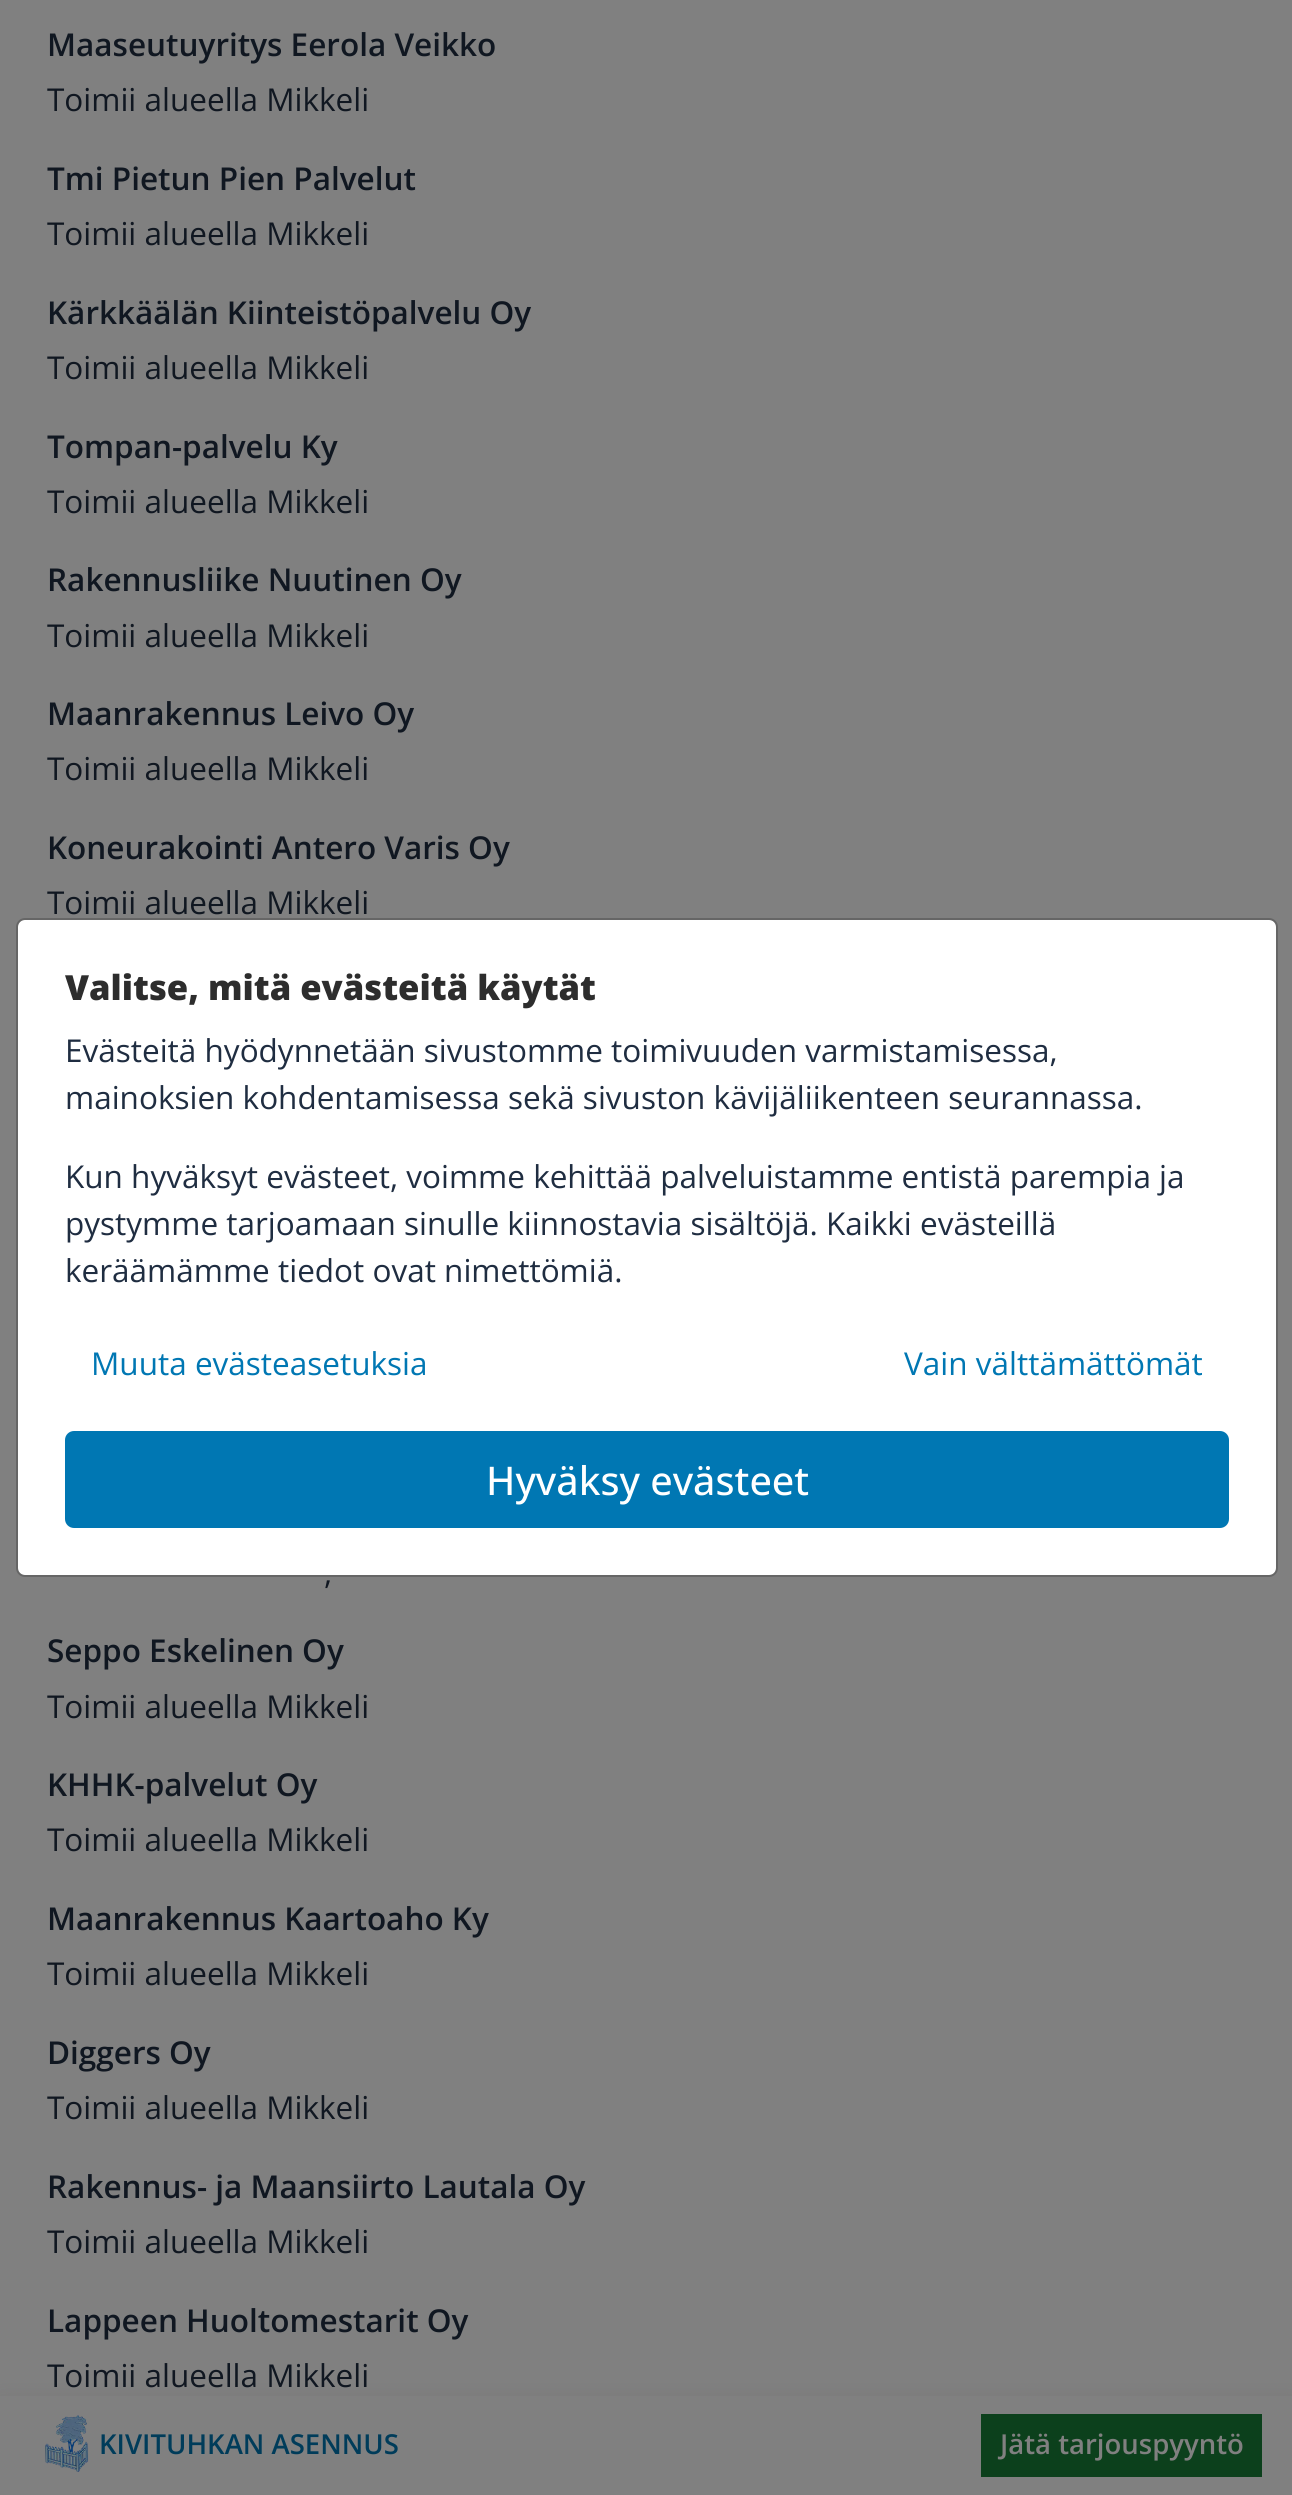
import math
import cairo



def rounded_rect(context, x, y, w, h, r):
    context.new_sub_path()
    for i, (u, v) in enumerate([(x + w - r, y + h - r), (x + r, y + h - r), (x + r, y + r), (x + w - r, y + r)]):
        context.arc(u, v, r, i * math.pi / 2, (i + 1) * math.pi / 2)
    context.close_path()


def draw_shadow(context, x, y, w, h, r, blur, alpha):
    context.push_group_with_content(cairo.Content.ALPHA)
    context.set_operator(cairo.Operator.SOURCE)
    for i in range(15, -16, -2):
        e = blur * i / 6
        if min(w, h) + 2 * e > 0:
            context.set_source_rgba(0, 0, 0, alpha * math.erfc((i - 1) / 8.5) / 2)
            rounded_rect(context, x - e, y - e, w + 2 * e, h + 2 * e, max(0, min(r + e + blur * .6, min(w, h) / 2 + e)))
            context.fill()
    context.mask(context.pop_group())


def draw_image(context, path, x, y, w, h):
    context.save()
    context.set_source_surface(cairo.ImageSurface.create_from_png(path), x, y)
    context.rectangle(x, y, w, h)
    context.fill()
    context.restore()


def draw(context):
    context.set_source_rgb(128 / 255, 128 / 255, 128 / 255)
    context.paint()
    context.set_source_rgb(1, 1, 1)
    rounded_rect(context, 18, 920, 1258, 655, 7)
    context.fill()
    rounded_rect(context, 17, 919, 1260, 657, 8)
    context.set_source_rgba(0, 0, 0, 0.2)
    context.stroke()
    context.set_source_rgb(0, 119 / 255, 179 / 255)
    rounded_rect(context, 66, 1432, 1162, 95, 8)
    context.fill_preserve()
    context.stroke()
    context.set_source_rgb(0, 0, 0)
    draw_shadow(context, 0, 2412, 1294, 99, 0, 16, 0.15)
    context.set_source_rgb(128 / 255, 128 / 255, 128 / 255)
    context.rectangle(0, 2396, 1292, 99)
    context.fill()
    draw_image(context, "images/1.png", 45, 2415, 44, 57)
    context.set_source_rgb(12 / 255, 64 / 255, 28 / 255)
    context.rectangle(981, 2414, 281, 63)
    context.fill()
    context.select_font_face("Open Sans SemiBold")
    context.set_font_size(31.5)
    context.set_source_rgb(16 / 255, 23 / 255, 33 / 255)
    context.move_to(47, 56)
    context.show_text("Maaseutuyritys Eerola Veikko")
    context.select_font_face("Open Sans")
    context.move_to(47, 111)
    context.show_text("Toimii alueella Mikkeli")
    context.select_font_face("Open Sans SemiBold")
    context.move_to(47, 190)
    context.show_text("Tmi Pietun Pien Palvelut")
    context.select_font_face("Open Sans")
    context.move_to(47, 245)
    context.show_text("Toimii alueella Mikkeli")
    context.select_font_face("Open Sans SemiBold")
    context.move_to(47, 324)
    context.show_text("Kärkkäälän Kiinteistöpalvelu Oy")
    context.select_font_face("Open Sans")
    context.move_to(47, 379)
    context.show_text("Toimii alueella Mikkeli")
    context.select_font_face("Open Sans SemiBold")
    context.move_to(47, 458)
    context.show_text("Tompan-palvelu Ky")
    context.select_font_face("Open Sans")
    context.move_to(47, 513)
    context.show_text("Toimii alueella Mikkeli")
    context.select_font_face("Open Sans SemiBold")
    context.move_to(47, 591)
    context.show_text("Rakennusliike Nuutinen Oy")
    context.select_font_face("Open Sans")
    context.move_to(47, 647)
    context.show_text("Toimii alueella Mikkeli")
    context.select_font_face("Open Sans SemiBold")
    context.move_to(47, 725)
    context.show_text("Maanrakennus Leivo Oy")
    context.select_font_face("Open Sans")
    context.move_to(47, 780)
    context.show_text("Toimii alueella Mikkeli")
    context.select_font_face("Open Sans SemiBold")
    context.move_to(47, 859)
    context.show_text("Koneurakointi Antero Varis Oy")
    context.select_font_face("Open Sans")
    context.move_to(47, 914)
    context.show_text("Toimii alueella Mikkeli")
    context.move_to(324, 1584)
    context.show_text(",")
    context.select_font_face("Open Sans SemiBold")
    context.move_to(47, 1662)
    context.show_text("Seppo Eskelinen Oy")
    context.select_font_face("Open Sans")
    context.move_to(47, 1718)
    context.show_text("Toimii alueella Mikkeli")
    context.select_font_face("Open Sans SemiBold")
    context.move_to(47, 1796)
    context.show_text("KHHK-palvelut Oy")
    context.select_font_face("Open Sans")
    context.move_to(47, 1851)
    context.show_text("Toimii alueella Mikkeli")
    context.select_font_face("Open Sans SemiBold")
    context.move_to(47, 1930)
    context.show_text("Maanrakennus Kaartoaho Ky")
    context.select_font_face("Open Sans")
    context.move_to(47, 1985)
    context.show_text("Toimii alueella Mikkeli")
    context.select_font_face("Open Sans SemiBold")
    context.move_to(47, 2064)
    context.show_text("Diggers Oy")
    context.select_font_face("Open Sans")
    context.move_to(47, 2119)
    context.show_text("Toimii alueella Mikkeli")
    context.select_font_face("Open Sans SemiBold")
    context.move_to(47, 2198)
    context.show_text("Rakennus- ja Maansiirto Lautala Oy")
    context.select_font_face("Open Sans")
    context.move_to(47, 2253)
    context.show_text("Toimii alueella Mikkeli")
    context.select_font_face("Open Sans SemiBold")
    context.move_to(47, 2332)
    context.show_text("Lappeen Huoltomestarit Oy")
    context.select_font_face("Open Sans")
    context.move_to(47, 2387)
    context.show_text("Toimii alueella Mikkeli")
    context.select_font_face("Open Sans ExtraBold")
    context.set_font_size(34.6)
    context.set_source_rgb(45 / 255, 45 / 255, 45 / 255)
    context.move_to(65, 1000)
    context.show_text("Valitse, mitä evästeitä käytät")
    context.select_font_face("Open Sans")
    context.set_font_size(31.5)
    context.set_source_rgb(31 / 255, 45 / 255, 65 / 255)
    context.move_to(65, 1062)
    context.show_text("Evästeitä hyödynnetään sivustomme toimivuuden varmistamisessa,")
    context.move_to(65, 1109)
    context.show_text("mainoksien kohdentamisessa sekä sivuston kävijäliikenteen seurannassa.")
    context.move_to(65, 1188)
    context.show_text("Kun hyväksyt evästeet, voimme kehittää palveluistamme entistä parempia ja")
    context.move_to(65, 1235)
    context.show_text("pystymme tarjoamaan sinulle kiinnostavia sisältöjä. Kaikki evästeillä")
    context.move_to(65, 1282)
    context.show_text("keräämämme tiedot ovat nimettömiä.")
    context.set_source_rgb(0, 119 / 255, 179 / 255)
    context.move_to(91, 1375)
    context.show_text("Muuta evästeasetuksia")
    context.move_to(904, 1375)
    context.show_text("Vain välttämättömät")
    context.select_font_face("Open Sans Medium")
    context.set_font_size(39.5)
    context.set_source_rgb(1, 1, 1)
    context.move_to(486, 1495)
    context.show_text("Hyväksy evästeet")
    context.select_font_face("Open Sans SemiBold")
    context.set_font_size(27.5)
    context.set_source_rgb(0, 60 / 255, 90 / 255)
    context.move_to(99, 2454)
    context.show_text("KIVITUHKAN ASENNUS")
    context.set_source_rgb(128 / 255, 128 / 255, 128 / 255)
    context.move_to(1000, 2454)
    context.show_text("Jätä tarjouspyyntö")


surface = cairo.ImageSurface(cairo.Format.RGB24, 1292, 2495)
context = cairo.Context(surface)
options = cairo.FontOptions()
options.set_hint_metrics(cairo.HintMetrics.OFF)
options.set_hint_style(cairo.HintStyle.NONE)
context.set_font_options(options)
context.set_miter_limit(4)
draw(context)
surface.write_to_png("out.png")
